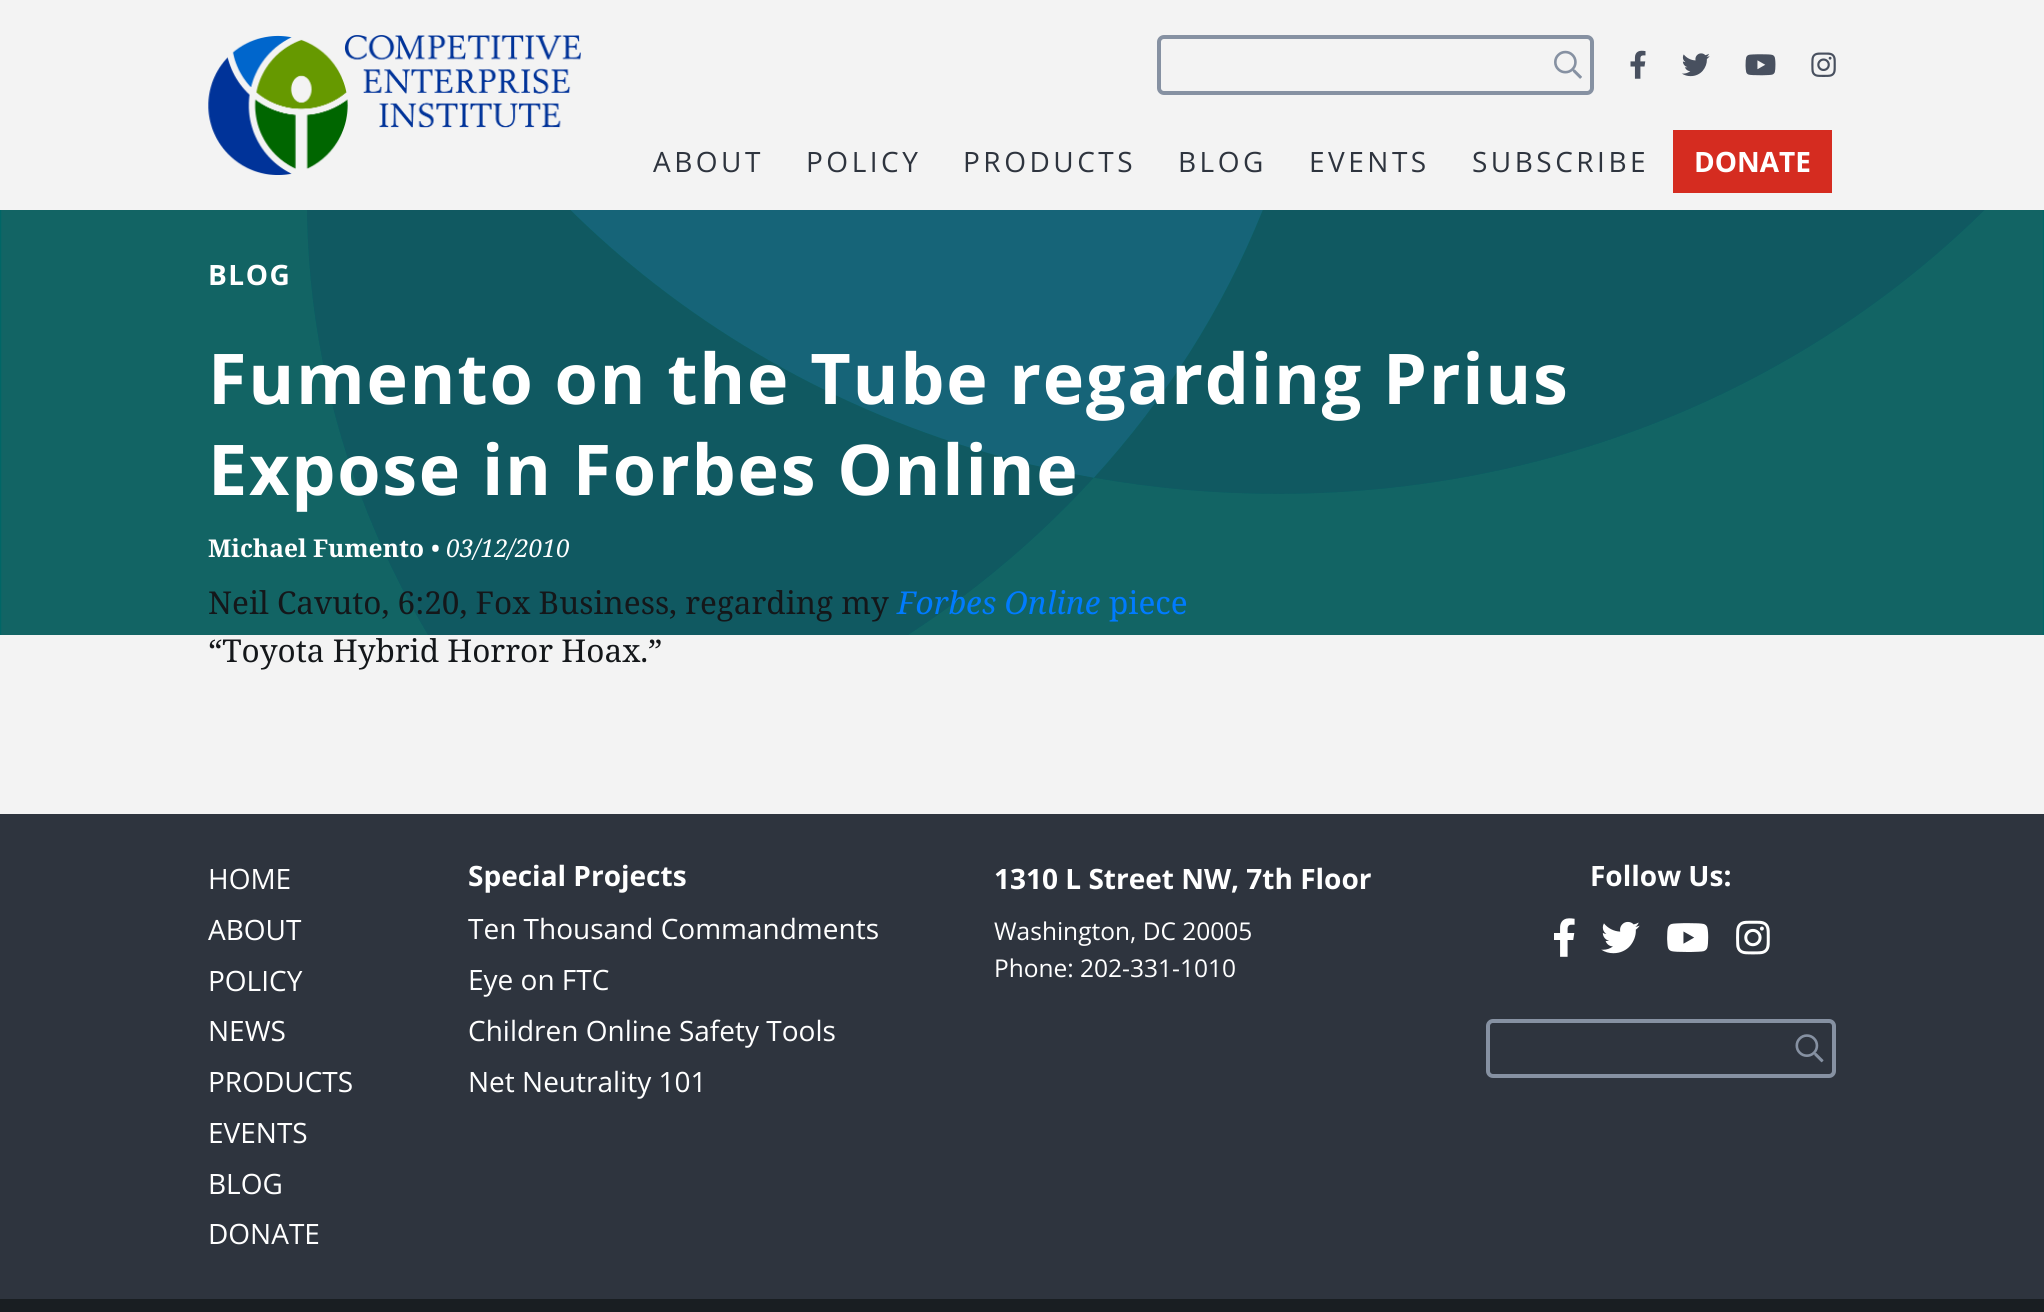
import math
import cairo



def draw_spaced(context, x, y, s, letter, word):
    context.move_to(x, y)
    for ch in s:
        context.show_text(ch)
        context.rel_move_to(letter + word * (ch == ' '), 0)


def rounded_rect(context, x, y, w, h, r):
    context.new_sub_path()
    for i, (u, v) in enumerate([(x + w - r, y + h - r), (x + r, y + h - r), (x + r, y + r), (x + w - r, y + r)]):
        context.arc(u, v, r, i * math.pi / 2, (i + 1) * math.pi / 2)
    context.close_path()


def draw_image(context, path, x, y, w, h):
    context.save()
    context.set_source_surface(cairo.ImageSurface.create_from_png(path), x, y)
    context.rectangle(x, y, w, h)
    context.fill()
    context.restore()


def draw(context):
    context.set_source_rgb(243 / 255, 243 / 255, 243 / 255)
    context.paint()
    draw_image(context, "images/1.png", 208, 35, 373, 140)
    rounded_rect(context, 1159, 37, 433, 56, 5)
    context.set_source_rgb(134 / 255, 145 / 255, 162 / 255)
    context.set_line_width(4)
    context.stroke()
    draw_image(context, "images/2.png", 1554, 50, 28, 29)
    draw_image(context, "images/3.png", 1630, 50, 16, 29)
    draw_image(context, "images/4.png", 1681, 53, 29, 24)
    draw_image(context, "images/5.png", 1745, 54, 31, 22)
    draw_image(context, "images/6.png", 1811, 52, 25, 25)
    context.set_source_rgb(213 / 255, 44 / 255, 32 / 255)
    context.rectangle(1673, 130, 159, 63)
    context.fill()
    context.set_source_rgb(0, 102 / 255, 102 / 255)
    context.rectangle(0, 210, 2044, 425)
    context.fill()
    draw_image(context, "images/7.png", 1, 210, 2042, 425)
    context.set_source_rgb(46 / 255, 52 / 255, 62 / 255)
    context.rectangle(0, 814, 2044, 485)
    context.fill()
    draw_image(context, "images/8.png", 1554, 918, 21, 39)
    draw_image(context, "images/9.png", 1601, 921, 39, 33)
    draw_image(context, "images/10.png", 1667, 923, 42, 29)
    draw_image(context, "images/11.png", 1736, 920, 34, 35)
    rounded_rect(context, 1488, 1021, 346, 55, 5)
    context.set_source_rgb(134 / 255, 145 / 255, 162 / 255)
    context.stroke()
    draw_image(context, "images/12.png", 1795, 1034, 29, 29)
    context.set_source_rgb(25 / 255, 30 / 255, 34 / 255)
    context.rectangle(0, 1299, 2044, 13)
    context.fill()
    context.select_font_face("Open Sans")
    context.set_font_size(28)
    context.set_source_rgb(46 / 255, 52 / 255, 62 / 255)
    draw_spaced(context, 653, 172, "ABOUT", 3.5, 0)
    draw_spaced(context, 806, 172, "POLICY", 3.5, 0)
    draw_spaced(context, 963, 172, "PRODUCTS", 3.5, 0)
    draw_spaced(context, 1178, 172, "BLOG", 3.5, 0)
    draw_spaced(context, 1309, 172, "EVENTS", 3.5, 0)
    draw_spaced(context, 1472, 172, "SUBSCRIBE", 3.5, 0)
    context.select_font_face("Open Sans", cairo.FontSlant.NORMAL, cairo.FontWeight.BOLD)
    context.set_source_rgb(1, 1, 1)
    context.move_to(1694, 172)
    context.show_text("DONATE")
    draw_spaced(context, 208, 285, "BLOG", 1.5, 0)
    context.select_font_face("Noto Serif", cairo.FontSlant.NORMAL, cairo.FontWeight.BOLD)
    context.set_font_size(24.5)
    context.move_to(208, 557)
    context.show_text("Michael Fumento")
    context.select_font_face("Noto Serif")
    context.move_to(431, 557)
    context.show_text("•")
    context.select_font_face("Noto Serif", cairo.FontSlant.ITALIC)
    context.move_to(446, 557)
    context.show_text("03/12/2010")
    context.select_font_face("Open Sans", cairo.FontSlant.NORMAL, cairo.FontWeight.BOLD)
    context.set_font_size(70)
    draw_spaced(context, 208, 404, "Fumento on the Tube regarding Prius", 1.75, 0)
    draw_spaced(context, 208, 495, "Expose in Forbes Online", 1.75, 0)
    context.select_font_face("Noto Serif")
    context.set_font_size(31.5)
    context.set_source_rgb(20 / 255, 23 / 255, 26 / 255)
    context.move_to(208, 614)
    context.show_text("Neil Cavuto, 6:20, Fox Business, regarding my")
    context.select_font_face("Noto Serif", cairo.FontSlant.ITALIC)
    context.set_source_rgb(0, 123 / 255, 1)
    context.move_to(897, 614)
    context.show_text("Forbes Online")
    context.select_font_face("Noto Serif")
    context.move_to(1109, 614)
    context.show_text("piece")
    context.set_source_rgb(20 / 255, 23 / 255, 26 / 255)
    context.move_to(208, 662)
    context.show_text("“Toyota Hybrid Horror Hoax.”")
    context.select_font_face("Open Sans")
    context.set_font_size(28)
    context.set_source_rgb(1, 1, 1)
    context.move_to(208, 889)
    context.show_text("HOME")
    context.move_to(208, 940)
    context.show_text("ABOUT")
    context.move_to(208, 991)
    context.show_text("POLICY")
    context.move_to(208, 1041)
    context.show_text("NEWS")
    context.move_to(208, 1092)
    context.show_text("PRODUCTS")
    context.move_to(208, 1143)
    context.show_text("EVENTS")
    context.move_to(208, 1194)
    context.show_text("BLOG")
    context.move_to(208, 1244)
    context.show_text("DONATE")
    context.select_font_face("Open Sans", cairo.FontSlant.NORMAL, cairo.FontWeight.BOLD)
    context.move_to(468, 886)
    context.show_text("Special Projects")
    context.select_font_face("Open Sans")
    context.move_to(468, 939)
    context.show_text("Ten Thousand Commandments")
    context.move_to(468, 990)
    context.show_text("Eye on FTC")
    context.move_to(468, 1041)
    context.show_text("Children Online Safety Tools")
    context.move_to(468, 1092)
    context.show_text("Net Neutrality 101")
    context.select_font_face("Open Sans", cairo.FontSlant.NORMAL, cairo.FontWeight.BOLD)
    context.move_to(994, 889)
    context.show_text("1310 L Street NW, 7th Floor")
    context.select_font_face("Open Sans")
    context.set_font_size(24.5)
    context.move_to(994, 940)
    context.show_text("Washington, DC 20005")
    context.move_to(994, 977)
    context.show_text("Phone: 202-331-1010")
    context.select_font_face("Open Sans", cairo.FontSlant.NORMAL, cairo.FontWeight.BOLD)
    context.set_font_size(28)
    context.move_to(1590, 886)
    context.show_text("Follow Us:")


surface = cairo.ImageSurface(cairo.Format.RGB24, 2044, 1312)
context = cairo.Context(surface)
options = cairo.FontOptions()
options.set_hint_metrics(cairo.HintMetrics.OFF)
options.set_hint_style(cairo.HintStyle.NONE)
context.set_font_options(options)
context.set_miter_limit(4)
draw(context)
surface.write_to_png("out.png")
